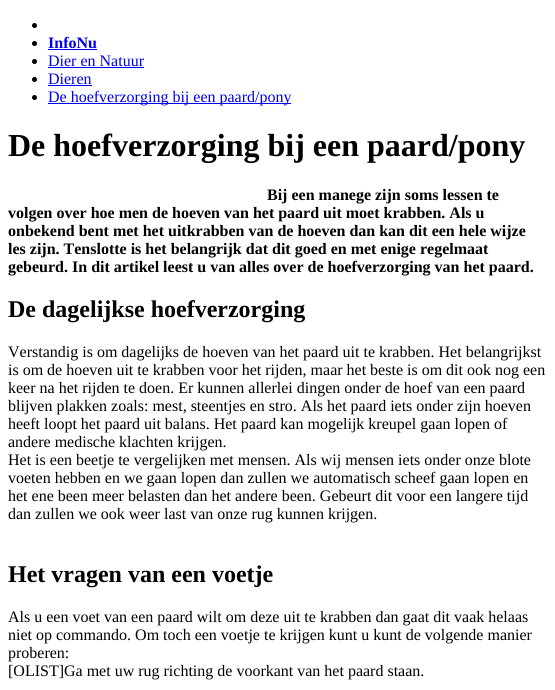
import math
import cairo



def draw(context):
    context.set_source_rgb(1, 1, 1)
    context.paint()
    context.set_source_rgb(0, 0, 0)
    context.arc(34.5, 25.5, 2.5, 0, 2 * math.pi)
    context.fill()
    context.arc(34.5, 43.5, 2.5, 0, 2 * math.pi)
    context.fill()
    context.set_source_rgb(0, 0, 238 / 255)
    context.rectangle(48, 49, 49, 1)
    context.fill()
    context.set_source_rgb(0, 0, 0)
    context.arc(34.5, 61.5, 2.5, 0, 2 * math.pi)
    context.fill()
    context.set_source_rgb(0, 0, 238 / 255)
    context.rectangle(48, 67, 96, 1)
    context.fill()
    context.set_source_rgb(0, 0, 0)
    context.arc(34.5, 79.5, 2.5, 0, 2 * math.pi)
    context.fill()
    context.set_source_rgb(0, 0, 238 / 255)
    context.rectangle(48, 85, 44, 1)
    context.fill()
    context.set_source_rgb(0, 0, 0)
    context.arc(34.5, 97.5, 2.5, 0, 2 * math.pi)
    context.fill()
    context.set_source_rgb(0, 0, 238 / 255)
    context.rectangle(48, 103, 243, 1)
    context.fill()
    context.select_font_face("Liberation Serif", cairo.FontSlant.NORMAL, cairo.FontWeight.BOLD)
    context.set_font_size(16)
    context.move_to(48, 48)
    context.show_text("InfoNu")
    context.select_font_face("Liberation Serif")
    context.move_to(48, 66)
    context.show_text("Dier en Natuur")
    context.move_to(48, 84)
    context.show_text("Dieren")
    context.move_to(48, 102)
    context.show_text("De hoefverzorging bij een paard/pony")
    context.select_font_face("Liberation Serif", cairo.FontSlant.NORMAL, cairo.FontWeight.BOLD)
    context.set_font_size(32)
    context.set_source_rgb(0, 0, 0)
    context.move_to(8, 156)
    context.show_text("De hoefverzorging bij een paard/pony")
    context.set_font_size(16)
    context.move_to(267, 200)
    context.show_text("Bij een manege zijn soms lessen te")
    context.move_to(8, 218)
    context.show_text("volgen over hoe men de hoeven van het paard uit moet krabben. Als u")
    context.move_to(8, 236)
    context.show_text("onbekend bent met het uitkrabben van de hoeven dan kan dit een hele wijze")
    context.move_to(8, 254)
    context.show_text("les zijn. Tenslotte is het belangrijk dat dit goed en met enige regelmaat")
    context.move_to(8, 272)
    context.show_text("gebeurd. In dit artikel leest u van alles over de hoefverzorging van het paard.")
    context.set_font_size(24)
    context.move_to(8, 317)
    context.show_text("De dagelijkse hoefverzorging")
    context.select_font_face("Liberation Serif")
    context.set_font_size(16)
    context.move_to(8, 357)
    context.show_text("Verstandig is om dagelijks de hoeven van het paard uit te krabben. Het belangrijkst")
    context.move_to(8, 375)
    context.show_text("is om de hoeven uit te krabben voor het rijden, maar het beste is om dit ook nog een")
    context.move_to(8, 393)
    context.show_text("keer na het rijden te doen. Er kunnen allerlei dingen onder de hoef van een paard")
    context.move_to(8, 411)
    context.show_text("blijven plakken zoals: mest, steentjes en stro. Als het paard iets onder zijn hoeven")
    context.move_to(8, 429)
    context.show_text("heeft loopt het paard uit balans. Het paard kan mogelijk kreupel gaan lopen of")
    context.move_to(8, 447)
    context.show_text("andere medische klachten krijgen.")
    context.move_to(8, 465)
    context.show_text("Het is een beetje te vergelijken met mensen. Als wij mensen iets onder onze blote")
    context.move_to(8, 483)
    context.show_text("voeten hebben en we gaan lopen dan zullen we automatisch scheef gaan lopen en")
    context.move_to(8, 501)
    context.show_text("het ene been meer belasten dan het andere been. Gebeurt dit voor een langere tijd")
    context.move_to(8, 519)
    context.show_text("dan zullen we ook weer last van onze rug kunnen krijgen.")
    context.select_font_face("Liberation Serif", cairo.FontSlant.NORMAL, cairo.FontWeight.BOLD)
    context.set_font_size(24)
    context.move_to(8, 582)
    context.show_text("Het vragen van een voetje")
    context.select_font_face("Liberation Serif")
    context.set_font_size(16)
    context.move_to(8, 622)
    context.show_text("Als u een voet van een paard wilt om deze uit te krabben dan gaat dit vaak helaas")
    context.move_to(8, 640)
    context.show_text("niet op commando. Om toch een voetje te krijgen kunt u kunt de volgende manier")
    context.move_to(8, 658)
    context.show_text("proberen:")
    context.move_to(8, 676)
    context.show_text("[OLIST]Ga met uw rug richting de voorkant van het paard staan.")


surface = cairo.ImageSurface(cairo.Format.RGB24, 555, 690)
context = cairo.Context(surface)
options = cairo.FontOptions()
options.set_hint_metrics(cairo.HintMetrics.OFF)
options.set_hint_style(cairo.HintStyle.NONE)
context.set_font_options(options)
context.set_miter_limit(4)
draw(context)
surface.write_to_png("out.png")
